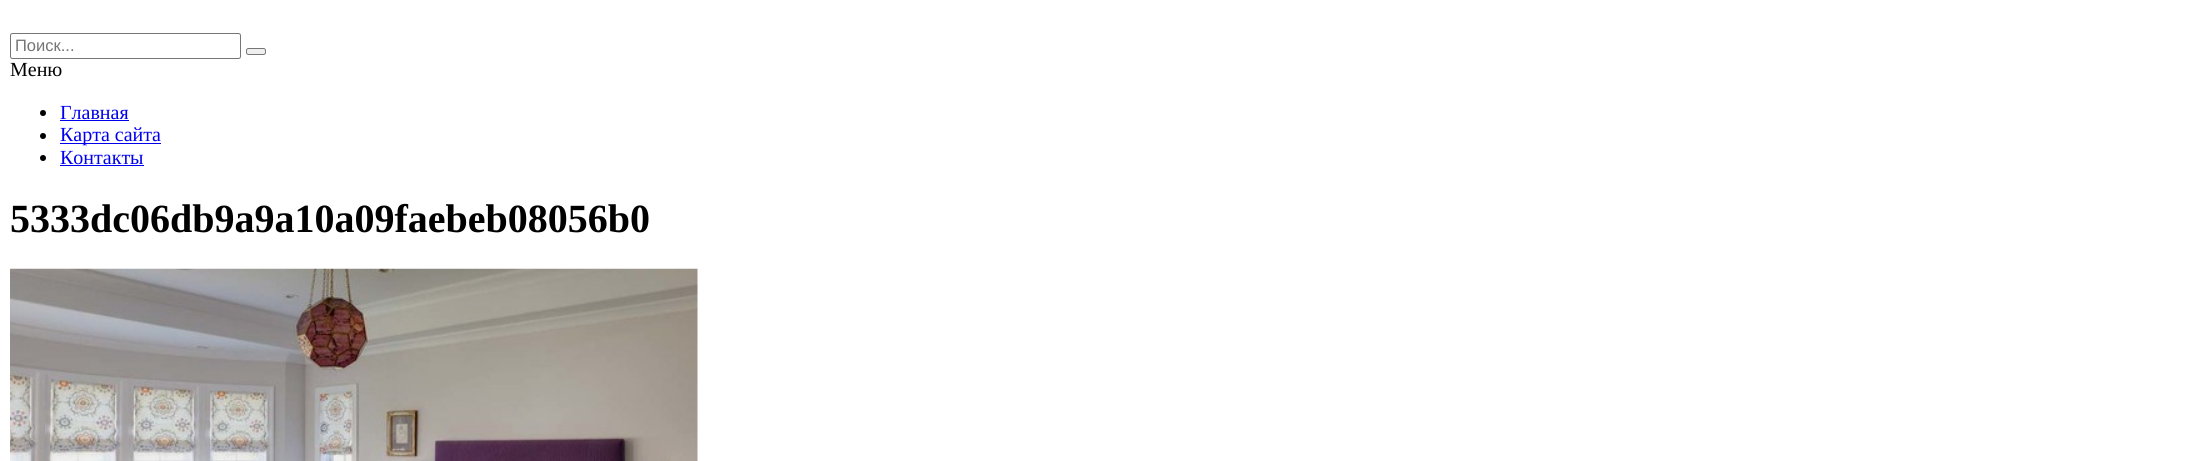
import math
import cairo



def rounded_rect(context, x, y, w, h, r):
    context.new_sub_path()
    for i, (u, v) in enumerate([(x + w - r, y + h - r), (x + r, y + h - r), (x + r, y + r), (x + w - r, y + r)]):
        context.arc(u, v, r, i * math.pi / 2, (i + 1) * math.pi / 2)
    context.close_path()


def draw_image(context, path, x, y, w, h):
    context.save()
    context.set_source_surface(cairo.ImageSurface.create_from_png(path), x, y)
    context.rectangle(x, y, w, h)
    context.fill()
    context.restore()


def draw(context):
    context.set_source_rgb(1, 1, 1)
    context.paint()
    rounded_rect(context, 10.5, 33.5, 230, 25, 2)
    context.set_source_rgb(118 / 255, 118 / 255, 118 / 255)
    context.set_line_width(1)
    context.stroke()
    context.set_source_rgb(239 / 255, 239 / 255, 239 / 255)
    rounded_rect(context, 246.5, 48.5, 19, 6, 2)
    context.fill_preserve()
    context.set_source_rgb(118 / 255, 118 / 255, 118 / 255)
    context.stroke()
    context.set_source_rgb(0, 0, 0)
    context.arc(43, 113, 3, 0, 2 * math.pi)
    context.fill()
    context.set_source_rgb(0, 0, 238 / 255)
    context.rectangle(60, 120, 69, 1)
    context.fill()
    context.set_source_rgb(0, 0, 0)
    context.arc(43, 136, 3, 0, 2 * math.pi)
    context.fill()
    context.set_source_rgb(0, 0, 238 / 255)
    context.rectangle(60, 143, 101, 1)
    context.fill()
    context.set_source_rgb(0, 0, 0)
    context.arc(43, 158, 3, 0, 2 * math.pi)
    context.fill()
    context.set_source_rgb(0, 0, 238 / 255)
    context.rectangle(60, 165, 84, 1)
    context.fill()
    draw_image(context, "images/1.png", 10, 268, 688, 193)
    context.select_font_face("Liberation Sans")
    context.set_font_size(16.5)
    context.set_source_rgb(117 / 255, 117 / 255, 117 / 255)
    context.move_to(15, 51)
    context.show_text("Поиск...")
    context.select_font_face("Liberation Serif")
    context.set_font_size(20)
    context.set_source_rgb(0, 0, 0)
    context.move_to(10, 76)
    context.show_text("Меню")
    context.set_source_rgb(0, 0, 238 / 255)
    context.move_to(60, 119)
    context.show_text("Главная")
    context.move_to(60, 141)
    context.show_text("Карта сайта")
    context.move_to(60, 164)
    context.show_text("Контакты")
    context.select_font_face("Liberation Serif", cairo.FontSlant.NORMAL, cairo.FontWeight.BOLD)
    context.set_font_size(40)
    context.set_source_rgb(0, 0, 0)
    context.move_to(10, 232)
    context.show_text("5333dc06db9a9a10a09faebeb08056b0")


surface = cairo.ImageSurface(cairo.Format.RGB24, 2210, 461)
context = cairo.Context(surface)
options = cairo.FontOptions()
options.set_hint_metrics(cairo.HintMetrics.OFF)
options.set_hint_style(cairo.HintStyle.NONE)
context.set_font_options(options)
context.set_miter_limit(4)
draw(context)
surface.write_to_png("out.png")
